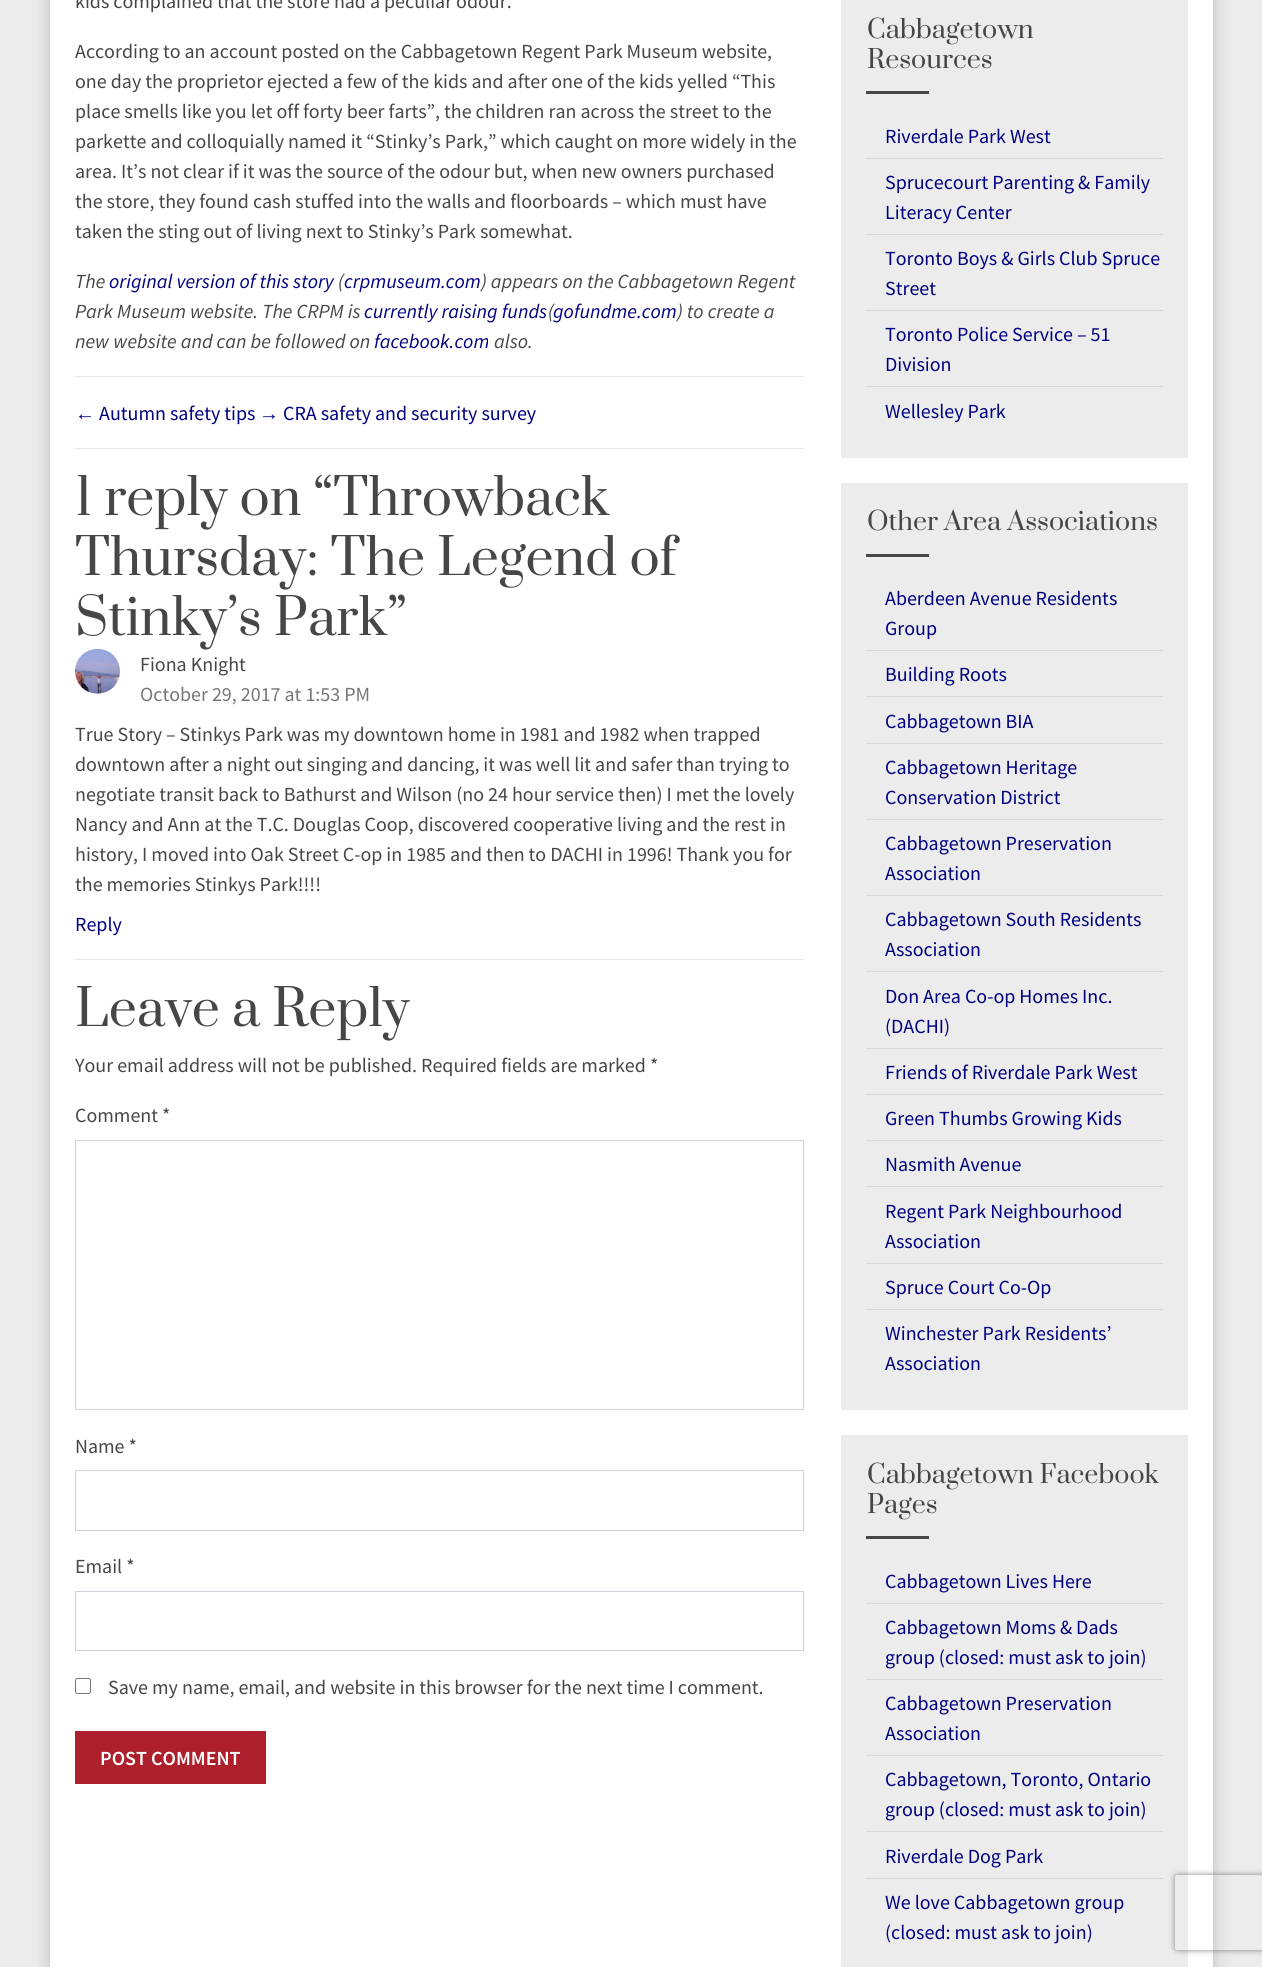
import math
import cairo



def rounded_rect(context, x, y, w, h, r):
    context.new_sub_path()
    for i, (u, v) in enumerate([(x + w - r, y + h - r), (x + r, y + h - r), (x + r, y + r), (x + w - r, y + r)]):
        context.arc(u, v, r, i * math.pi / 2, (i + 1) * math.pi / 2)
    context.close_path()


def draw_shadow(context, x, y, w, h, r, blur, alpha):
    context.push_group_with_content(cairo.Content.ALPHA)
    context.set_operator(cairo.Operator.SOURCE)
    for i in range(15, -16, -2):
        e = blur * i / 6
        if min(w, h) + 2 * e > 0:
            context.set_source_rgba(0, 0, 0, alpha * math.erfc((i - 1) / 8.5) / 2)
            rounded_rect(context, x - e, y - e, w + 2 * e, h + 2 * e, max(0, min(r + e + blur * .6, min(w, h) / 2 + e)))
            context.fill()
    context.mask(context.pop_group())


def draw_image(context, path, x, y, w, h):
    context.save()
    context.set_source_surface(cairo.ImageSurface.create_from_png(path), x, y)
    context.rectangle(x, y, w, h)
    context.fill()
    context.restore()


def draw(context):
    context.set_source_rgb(236 / 255, 236 / 255, 236 / 255)
    context.paint()
    context.set_source_rgb(0, 0, 0)
    draw_shadow(context, 50, -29, 1163, 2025, 0, 9.5, 0.2)
    context.set_source_rgb(1, 1, 1)
    context.rectangle(50, 0, 1163, 1967)
    context.fill()
    context.set_source_rgb(230 / 255, 230 / 255, 230 / 255)
    context.rectangle(75, 376, 729, 1)
    context.fill()
    context.rectangle(75, 448, 729, 1)
    context.fill()
    context.rectangle(75, 959, 729, 1)
    context.fill()
    context.rectangle(75.5, 1140.5, 728, 269)
    context.set_source_rgb(206 / 255, 212 / 255, 218 / 255)
    context.set_line_width(1)
    context.stroke()
    context.rectangle(75.5, 1470.5, 728, 60)
    context.stroke()
    context.rectangle(75.5, 1591.5, 728, 59)
    context.stroke()
    rounded_rect(context, 75.5, 1678.5, 15, 15, 2)
    context.set_source_rgb(118 / 255, 118 / 255, 118 / 255)
    context.stroke()
    context.set_source_rgb(173 / 255, 32 / 255, 43 / 255)
    context.rectangle(75, 1731, 191, 53)
    context.fill()
    context.set_source_rgb(236 / 255, 236 / 255, 236 / 255)
    context.rectangle(841, 0, 347, 458)
    context.fill()
    context.set_source_rgb(70 / 255, 70 / 255, 70 / 255)
    context.rectangle(866, 91, 63, 3)
    context.fill()
    context.set_source_rgb(216 / 255, 216 / 255, 216 / 255)
    context.rectangle(866, 158, 297, 1)
    context.fill()
    context.rectangle(866, 234, 297, 1)
    context.fill()
    context.rectangle(866, 310, 297, 1)
    context.fill()
    context.rectangle(866, 386, 297, 1)
    context.fill()
    context.set_source_rgb(236 / 255, 236 / 255, 236 / 255)
    context.rectangle(841, 483, 347, 927)
    context.fill()
    context.set_source_rgb(70 / 255, 70 / 255, 70 / 255)
    context.rectangle(866, 554, 63, 3)
    context.fill()
    context.set_source_rgb(216 / 255, 216 / 255, 216 / 255)
    context.rectangle(866, 650, 297, 1)
    context.fill()
    context.rectangle(866, 696, 297, 1)
    context.fill()
    context.rectangle(866, 743, 297, 1)
    context.fill()
    context.rectangle(866, 819, 297, 1)
    context.fill()
    context.rectangle(866, 895, 297, 1)
    context.fill()
    context.rectangle(866, 971, 297, 1)
    context.fill()
    context.rectangle(866, 1048, 297, 1)
    context.fill()
    context.rectangle(866, 1094, 297, 1)
    context.fill()
    context.rectangle(866, 1140, 297, 1)
    context.fill()
    context.rectangle(866, 1186, 297, 1)
    context.fill()
    context.rectangle(866, 1263, 297, 1)
    context.fill()
    context.rectangle(866, 1309, 297, 1)
    context.fill()
    context.set_source_rgb(236 / 255, 236 / 255, 236 / 255)
    context.rectangle(841, 1435, 347, 532)
    context.fill()
    context.set_source_rgb(70 / 255, 70 / 255, 70 / 255)
    context.rectangle(866, 1536, 63, 3)
    context.fill()
    context.set_source_rgb(216 / 255, 216 / 255, 216 / 255)
    context.rectangle(866, 1603, 297, 1)
    context.fill()
    context.rectangle(866, 1679, 297, 1)
    context.fill()
    context.rectangle(866, 1755, 297, 1)
    context.fill()
    context.rectangle(866, 1831, 297, 1)
    context.fill()
    context.rectangle(866, 1878, 297, 1)
    context.fill()
    context.save()
    context.set_fill_rule(cairo.FillRule.EVEN_ODD)
    context.new_path()
    context.move_to(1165, 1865)
    context.line_to(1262, 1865)
    context.line_to(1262, 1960)
    context.line_to(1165, 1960)
    context.close_path()
    context.move_to(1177.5, 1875)
    context.line_to(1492.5, 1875)
    context.curve_to(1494, 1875, 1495, 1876, 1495, 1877.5)
    context.line_to(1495, 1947.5)
    context.curve_to(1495, 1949, 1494, 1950, 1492.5, 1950)
    context.line_to(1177.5, 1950)
    context.curve_to(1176, 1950, 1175, 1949, 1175, 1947.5)
    context.line_to(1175, 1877.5)
    context.curve_to(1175, 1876, 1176, 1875, 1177.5, 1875)
    context.close_path()
    context.clip()
    context.set_source_rgb(128 / 255, 128 / 255, 128 / 255)
    draw_shadow(context, 1175, 1875, 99, 75, 2.5, 3, 1)
    context.restore()
    context.select_font_face("Source Sans Pro")
    context.set_font_size(20)
    context.set_source_rgb(70 / 255, 70 / 255, 70 / 255)
    context.move_to(75, 8)
    context.show_text("kids complained that the store had a peculiar odour.")
    context.move_to(75, 58)
    context.show_text("According to an account posted on the Cabbagetown Regent Park Museum website,")
    context.move_to(75, 88)
    context.show_text("one day the proprietor ejected a few of the kids and after one of the kids yelled “This")
    context.move_to(75, 118)
    context.show_text("place smells like you let off forty beer farts”, the children ran across the street to the")
    context.move_to(75, 148)
    context.show_text("parkette and colloquially named it “Stinky’s Park,” which caught on more widely in the")
    context.move_to(75, 178)
    context.show_text("area. It’s not clear if it was the source of the odour but, when new owners purchased")
    context.move_to(75, 208)
    context.show_text("the store, they found cash stuffed into the walls and floorboards – which must have")
    context.move_to(75, 238)
    context.show_text("taken the sting out of living next to Stinky’s Park somewhat.")
    context.select_font_face("Source Sans Pro", cairo.FontSlant.ITALIC)
    context.move_to(75, 288)
    context.show_text("The")
    context.set_source_rgb(0, 0, 128 / 255)
    context.move_to(109, 288)
    context.show_text("original version of this story")
    context.set_source_rgb(70 / 255, 70 / 255, 70 / 255)
    context.move_to(338, 288)
    context.show_text("(")
    context.set_source_rgb(0, 0, 128 / 255)
    context.move_to(344, 288)
    context.show_text("crpmuseum.com")
    context.set_source_rgb(70 / 255, 70 / 255, 70 / 255)
    context.move_to(481, 288)
    context.show_text(") appears on the Cabbagetown Regent")
    context.move_to(75, 318)
    context.show_text("Park Museum website. The CRPM is")
    context.set_source_rgb(0, 0, 128 / 255)
    context.move_to(364, 318)
    context.show_text("currently raising funds")
    context.set_source_rgb(70 / 255, 70 / 255, 70 / 255)
    context.move_to(548, 318)
    context.show_text("(")
    context.set_source_rgb(0, 0, 128 / 255)
    context.move_to(553, 318)
    context.show_text("gofundme.com")
    context.set_source_rgb(70 / 255, 70 / 255, 70 / 255)
    context.move_to(677, 318)
    context.show_text(") to create a")
    context.move_to(75, 348)
    context.show_text("new website and can be followed on")
    context.set_source_rgb(0, 0, 128 / 255)
    context.move_to(374, 348)
    context.show_text("facebook.com")
    context.set_source_rgb(70 / 255, 70 / 255, 70 / 255)
    context.move_to(494, 348)
    context.show_text("also.")
    context.select_font_face("Liberation Sans")
    context.set_source_rgb(0, 0, 128 / 255)
    context.move_to(75, 420)
    context.show_text("←")
    context.select_font_face("Source Sans Pro")
    context.move_to(99, 420)
    context.show_text("Autumn safety tips")
    context.select_font_face("Liberation Sans")
    context.move_to(259, 420)
    context.show_text("→")
    context.select_font_face("Source Sans Pro")
    context.move_to(283, 420)
    context.show_text("CRA safety and security survey")
    context.select_font_face("Prata")
    context.set_font_size(50)
    context.set_source_rgb(70 / 255, 70 / 255, 70 / 255)
    context.move_to(75, 515)
    context.show_text("1 reply on “Throwback")
    context.move_to(75, 575)
    context.show_text("Thursday: The Legend of")
    context.move_to(75, 635)
    context.show_text("Stinky’s Park”")
    draw_image(context, "images/1.png", 75, 648, 45, 46)
    context.select_font_face("Source Sans Pro")
    context.set_font_size(20)
    context.move_to(140, 671)
    context.show_text("Fiona Knight")
    context.set_source_rgb(118 / 255, 118 / 255, 118 / 255)
    context.move_to(140, 701)
    context.show_text("October 29, 2017 at 1:53 PM")
    context.set_source_rgb(70 / 255, 70 / 255, 70 / 255)
    context.move_to(75, 741)
    context.show_text("True Story – Stinkys Park was my downtown home in 1981 and 1982 when trapped")
    context.move_to(75, 771)
    context.show_text("downtown after a night out singing and dancing, it was well lit and safer than trying to")
    context.move_to(75, 801)
    context.show_text("negotiate transit back to Bathurst and Wilson (no 24 hour service then) I met the lovely")
    context.move_to(75, 831)
    context.show_text("Nancy and Ann at the T.C. Douglas Coop, discovered cooperative living and the rest in")
    context.move_to(75, 861)
    context.show_text("history, I moved into Oak Street C-op in 1985 and then to DACHI in 1996! Thank you for")
    context.move_to(75, 891)
    context.show_text("the memories Stinkys Park!!!!")
    context.set_source_rgb(0, 0, 128 / 255)
    context.move_to(75, 931)
    context.show_text("Reply")
    context.select_font_face("Prata")
    context.set_font_size(50)
    context.set_source_rgb(70 / 255, 70 / 255, 70 / 255)
    context.move_to(75, 1026)
    context.show_text("Leave a Reply")
    context.select_font_face("Source Sans Pro")
    context.set_font_size(20)
    context.move_to(75, 1072)
    context.show_text("Your email address will not be published. Required fields are marked *")
    context.move_to(75, 1122)
    context.show_text("Comment *")
    context.move_to(75, 1453)
    context.show_text("Name *")
    context.move_to(75, 1573)
    context.show_text("Email *")
    context.move_to(108, 1694)
    context.show_text("Save my name, email, and website in this browser for the next time I comment.")
    context.select_font_face("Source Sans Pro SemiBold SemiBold")
    context.set_source_rgb(1, 1, 1)
    context.move_to(100, 1765)
    context.show_text("POST COMMENT")
    context.select_font_face("Prata")
    context.set_font_size(25)
    context.set_source_rgb(70 / 255, 70 / 255, 70 / 255)
    context.move_to(867, 38)
    context.show_text("Cabbagetown")
    context.move_to(867, 68)
    context.show_text("Resources")
    context.select_font_face("Source Sans Pro")
    context.set_font_size(20)
    context.set_source_rgb(0, 0, 128 / 255)
    context.move_to(885, 143)
    context.show_text("Riverdale Park West")
    context.move_to(885, 189)
    context.show_text("Sprucecourt Parenting & Family")
    context.move_to(885, 219)
    context.show_text("Literacy Center")
    context.move_to(885, 265)
    context.show_text("Toronto Boys & Girls Club Spruce")
    context.move_to(885, 295)
    context.show_text("Street")
    context.move_to(885, 341)
    context.show_text("Toronto Police Service – 51")
    context.move_to(885, 371)
    context.show_text("Division")
    context.move_to(885, 418)
    context.show_text("Wellesley Park")
    context.select_font_face("Prata")
    context.set_font_size(25)
    context.set_source_rgb(70 / 255, 70 / 255, 70 / 255)
    context.move_to(867, 530)
    context.show_text("Other Area Associations")
    context.select_font_face("Source Sans Pro")
    context.set_font_size(20)
    context.set_source_rgb(0, 0, 128 / 255)
    context.move_to(885, 605)
    context.show_text("Aberdeen Avenue Residents")
    context.move_to(885, 635)
    context.show_text("Group")
    context.move_to(885, 681)
    context.show_text("Building Roots")
    context.move_to(885, 728)
    context.show_text("Cabbagetown BIA")
    context.move_to(885, 774)
    context.show_text("Cabbagetown Heritage")
    context.move_to(885, 804)
    context.show_text("Conservation District")
    context.move_to(885, 850)
    context.show_text("Cabbagetown Preservation")
    context.move_to(885, 880)
    context.show_text("Association")
    context.move_to(885, 926)
    context.show_text("Cabbagetown South Residents")
    context.move_to(885, 956)
    context.show_text("Association")
    context.move_to(885, 1003)
    context.show_text("Don Area Co-op Homes Inc.")
    context.move_to(885, 1033)
    context.show_text("(DACHI)")
    context.move_to(885, 1079)
    context.show_text("Friends of Riverdale Park West")
    context.move_to(885, 1125)
    context.show_text("Green Thumbs Growing Kids")
    context.move_to(885, 1171)
    context.show_text("Nasmith Avenue")
    context.move_to(885, 1218)
    context.show_text("Regent Park Neighbourhood")
    context.move_to(885, 1248)
    context.show_text("Association")
    context.move_to(885, 1294)
    context.show_text("Spruce Court Co-Op")
    context.move_to(885, 1340)
    context.show_text("Winchester Park Residents’")
    context.move_to(885, 1370)
    context.show_text("Association")
    context.select_font_face("Prata")
    context.set_font_size(25)
    context.set_source_rgb(70 / 255, 70 / 255, 70 / 255)
    context.move_to(867, 1483)
    context.show_text("Cabbagetown Facebook")
    context.move_to(867, 1513)
    context.show_text("Pages")
    context.select_font_face("Source Sans Pro")
    context.set_font_size(20)
    context.set_source_rgb(0, 0, 128 / 255)
    context.move_to(885, 1588)
    context.show_text("Cabbagetown Lives Here")
    context.move_to(885, 1634)
    context.show_text("Cabbagetown Moms & Dads")
    context.move_to(885, 1664)
    context.show_text("group (closed: must ask to join)")
    context.move_to(885, 1710)
    context.show_text("Cabbagetown Preservation")
    context.move_to(885, 1740)
    context.show_text("Association")
    context.move_to(885, 1786)
    context.show_text("Cabbagetown, Toronto, Ontario")
    context.move_to(885, 1816)
    context.show_text("group (closed: must ask to join)")
    context.move_to(885, 1863)
    context.show_text("Riverdale Dog Park")
    context.move_to(885, 1909)
    context.show_text("We love Cabbagetown group")
    context.move_to(885, 1939)
    context.show_text("(closed: must ask to join)")


surface = cairo.ImageSurface(cairo.Format.RGB24, 1262, 1967)
context = cairo.Context(surface)
options = cairo.FontOptions()
options.set_hint_metrics(cairo.HintMetrics.OFF)
options.set_hint_style(cairo.HintStyle.NONE)
context.set_font_options(options)
context.set_miter_limit(4)
draw(context)
surface.write_to_png("out.png")
